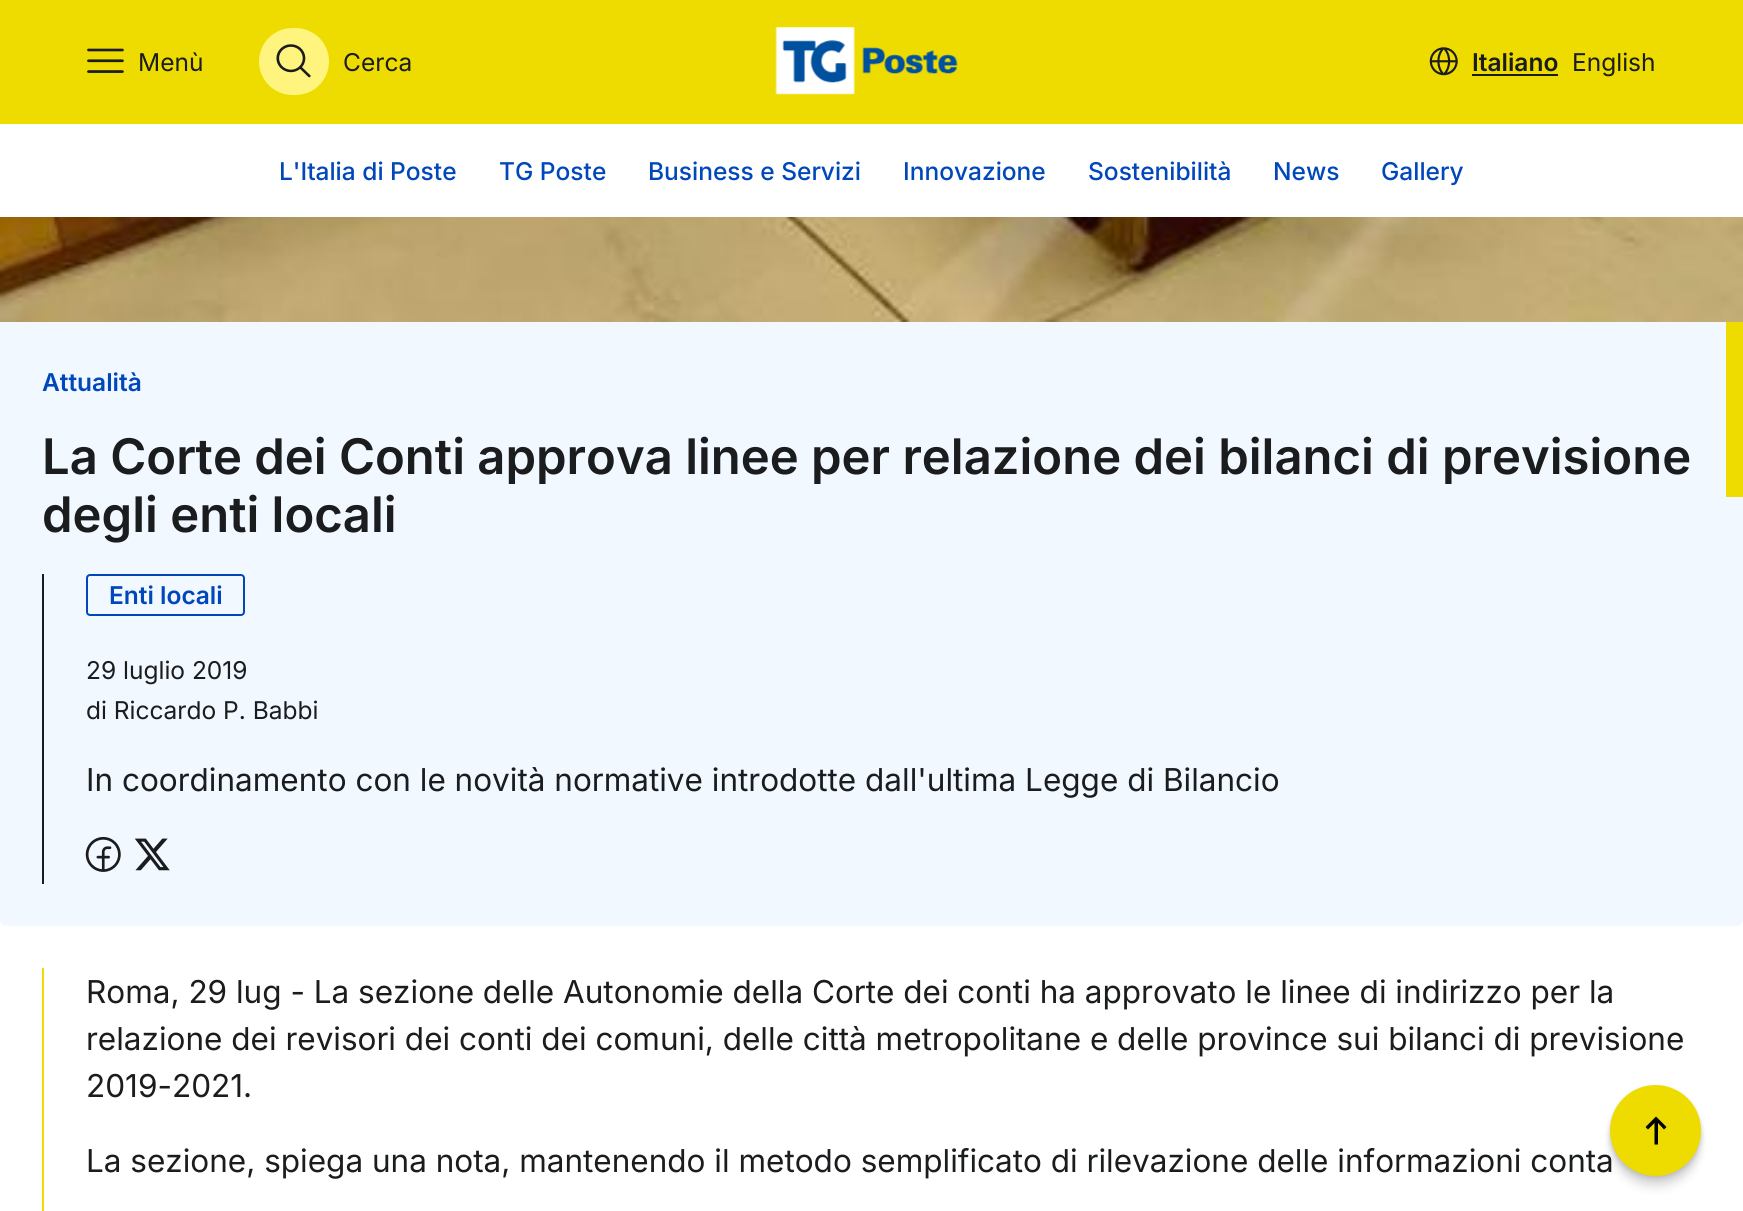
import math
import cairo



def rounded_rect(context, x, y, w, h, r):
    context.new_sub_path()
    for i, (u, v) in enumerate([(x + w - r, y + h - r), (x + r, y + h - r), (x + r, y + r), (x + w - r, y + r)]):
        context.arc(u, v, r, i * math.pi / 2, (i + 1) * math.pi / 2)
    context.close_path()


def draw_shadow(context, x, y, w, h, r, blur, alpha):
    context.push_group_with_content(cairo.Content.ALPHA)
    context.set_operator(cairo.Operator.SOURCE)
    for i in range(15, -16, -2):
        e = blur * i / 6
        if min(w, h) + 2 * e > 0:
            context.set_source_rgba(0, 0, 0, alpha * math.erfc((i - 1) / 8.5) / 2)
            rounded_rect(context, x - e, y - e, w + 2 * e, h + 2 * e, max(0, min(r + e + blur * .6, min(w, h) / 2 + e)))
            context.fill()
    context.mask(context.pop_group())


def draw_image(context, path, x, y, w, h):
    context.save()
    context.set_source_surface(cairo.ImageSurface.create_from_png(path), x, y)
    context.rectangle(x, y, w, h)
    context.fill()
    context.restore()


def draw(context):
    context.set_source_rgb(1, 1, 1)
    context.paint()
    context.set_source_rgb(238 / 255, 220 / 255, 0)
    context.rectangle(0, 0, 1743, 124)
    context.fill()
    draw_image(context, "images/1.png", 87, 48, 37, 25)
    context.set_source_rgb(1, 244 / 255, 126 / 255)
    rounded_rect(context, 259, 28, 70, 67, 33.5)
    context.fill()
    draw_image(context, "images/2.png", 276, 44, 35, 34)
    draw_image(context, "images/3.png", 775, 27, 183, 68)
    draw_image(context, "images/4.png", 1429, 47, 29, 29)
    context.set_source_rgb(26 / 255, 28 / 255, 30 / 255)
    context.rectangle(1472, 74, 86, 2)
    context.fill()
    draw_image(context, "images/5.png", 0, 217, 1743, 105)
    context.set_source_rgb(242 / 255, 248 / 255, 1)
    context.new_path()
    context.move_to(0, 322)
    context.line_to(1743, 322)
    context.line_to(1743, 919)
    context.curve_to(1743, 923, 1740, 926, 1736, 926)
    context.line_to(7, 926)
    context.curve_to(3, 926, 0, 923, 0, 919)
    context.close_path()
    context.fill()
    context.set_source_rgb(238 / 255, 220 / 255, 0)
    context.rectangle(1726, 322, 17, 175)
    context.fill()
    context.set_source_rgb(26 / 255, 28 / 255, 30 / 255)
    context.rectangle(42, 574, 2, 310)
    context.fill()
    rounded_rect(context, 87, 575, 157, 40, 3)
    context.set_source_rgb(0, 71 / 255, 187 / 255)
    context.stroke()
    draw_image(context, "images/6.png", 85, 836, 36, 36)
    draw_image(context, "images/7.png", 134, 838, 36, 33)
    context.set_source_rgb(238 / 255, 220 / 255, 0)
    context.rectangle(42, 968, 2, 243)
    context.fill()
    context.set_source_rgb(0, 0, 0)
    draw_shadow(context, 1610, 1099, 91, 91, 45.5, 4.5, 0.07)
    draw_shadow(context, 1610, 1092, 91, 91, 45.5, 3.5, 0.11)
    draw_shadow(context, 1610, 1087, 91, 91, 45.5, 2, 0.13)
    context.select_font_face("Inter")
    context.set_font_size(24.5)
    context.set_source_rgb(26 / 255, 28 / 255, 30 / 255)
    context.move_to(138, 71)
    context.show_text("Menù")
    context.move_to(343, 71)
    context.show_text("Cerca")
    context.select_font_face("Inter SemiBold")
    context.move_to(1472, 71)
    context.show_text("Italiano")
    context.select_font_face("Inter")
    context.move_to(1572, 71)
    context.show_text("English")
    context.select_font_face("Inter Medium")
    context.set_source_rgb(0, 71 / 255, 187 / 255)
    context.move_to(279, 180)
    context.show_text("L'Italia di Poste")
    context.move_to(499, 180)
    context.show_text("TG Poste")
    context.move_to(648, 180)
    context.show_text("Business e Servizi")
    context.move_to(903, 180)
    context.show_text("Innovazione")
    context.move_to(1088, 180)
    context.show_text("Sostenibilità")
    context.move_to(1273, 180)
    context.show_text("News")
    context.move_to(1381, 180)
    context.show_text("Gallery")
    context.select_font_face("Inter SemiBold")
    context.move_to(42, 391)
    context.show_text("Attualità")
    context.set_font_size(49)
    context.set_source_rgb(26 / 255, 28 / 255, 30 / 255)
    context.move_to(42, 474)
    context.show_text("La Corte dei Conti approva linee per relazione dei bilanci di previsione")
    context.move_to(42, 532)
    context.show_text("degli enti locali")
    context.set_font_size(24.5)
    context.set_source_rgb(0, 71 / 255, 187 / 255)
    context.move_to(109, 604)
    context.show_text("Enti locali")
    context.select_font_face("Inter")
    context.set_source_rgb(26 / 255, 28 / 255, 30 / 255)
    context.move_to(86, 679)
    context.show_text("29 luglio 2019")
    context.move_to(86, 719)
    context.show_text("di Riccardo P. Babbi")
    context.set_font_size(31.5)
    context.move_to(86, 791)
    context.show_text("In coordinamento con le novità normative introdotte dall'ultima Legge di Bilancio")
    context.move_to(86, 1003)
    context.show_text("Roma, 29 lug - La sezione delle Autonomie della Corte dei conti ha approvato le linee di indirizzo per la")
    context.move_to(86, 1050)
    context.show_text("relazione dei revisori dei conti dei comuni, delle città metropolitane e delle province sui bilanci di previsione")
    context.move_to(86, 1097)
    context.show_text("2019-2021.")
    context.move_to(86, 1172)
    context.show_text("La sezione, spiega una nota, mantenendo il metodo semplificato di rilevazione delle informazioni conta")
    context.set_source_rgb(238 / 255, 220 / 255, 0)
    context.new_path()
    context.arc(1655.5, 1130.5, 44.5, 0, 2 * math.pi)
    context.fill_preserve()
    context.stroke()
    context.set_source_rgb(0, 0, 0)
    context.new_path()
    context.move_to(1666.5, 1127)
    context.line_to(1664, 1129.5)
    context.line_to(1658, 1123)
    context.line_to(1658, 1144.5)
    context.line_to(1654.5, 1144.5)
    context.line_to(1654.5, 1123)
    context.line_to(1648, 1129.5)
    context.line_to(1645.5, 1127)
    context.line_to(1656, 1116.5)
    context.close_path()
    context.fill()


surface = cairo.ImageSurface(cairo.Format.RGB24, 1743, 1211)
context = cairo.Context(surface)
options = cairo.FontOptions()
options.set_hint_metrics(cairo.HintMetrics.OFF)
options.set_hint_style(cairo.HintStyle.NONE)
context.set_font_options(options)
context.set_miter_limit(4)
draw(context)
surface.write_to_png("out.png")
